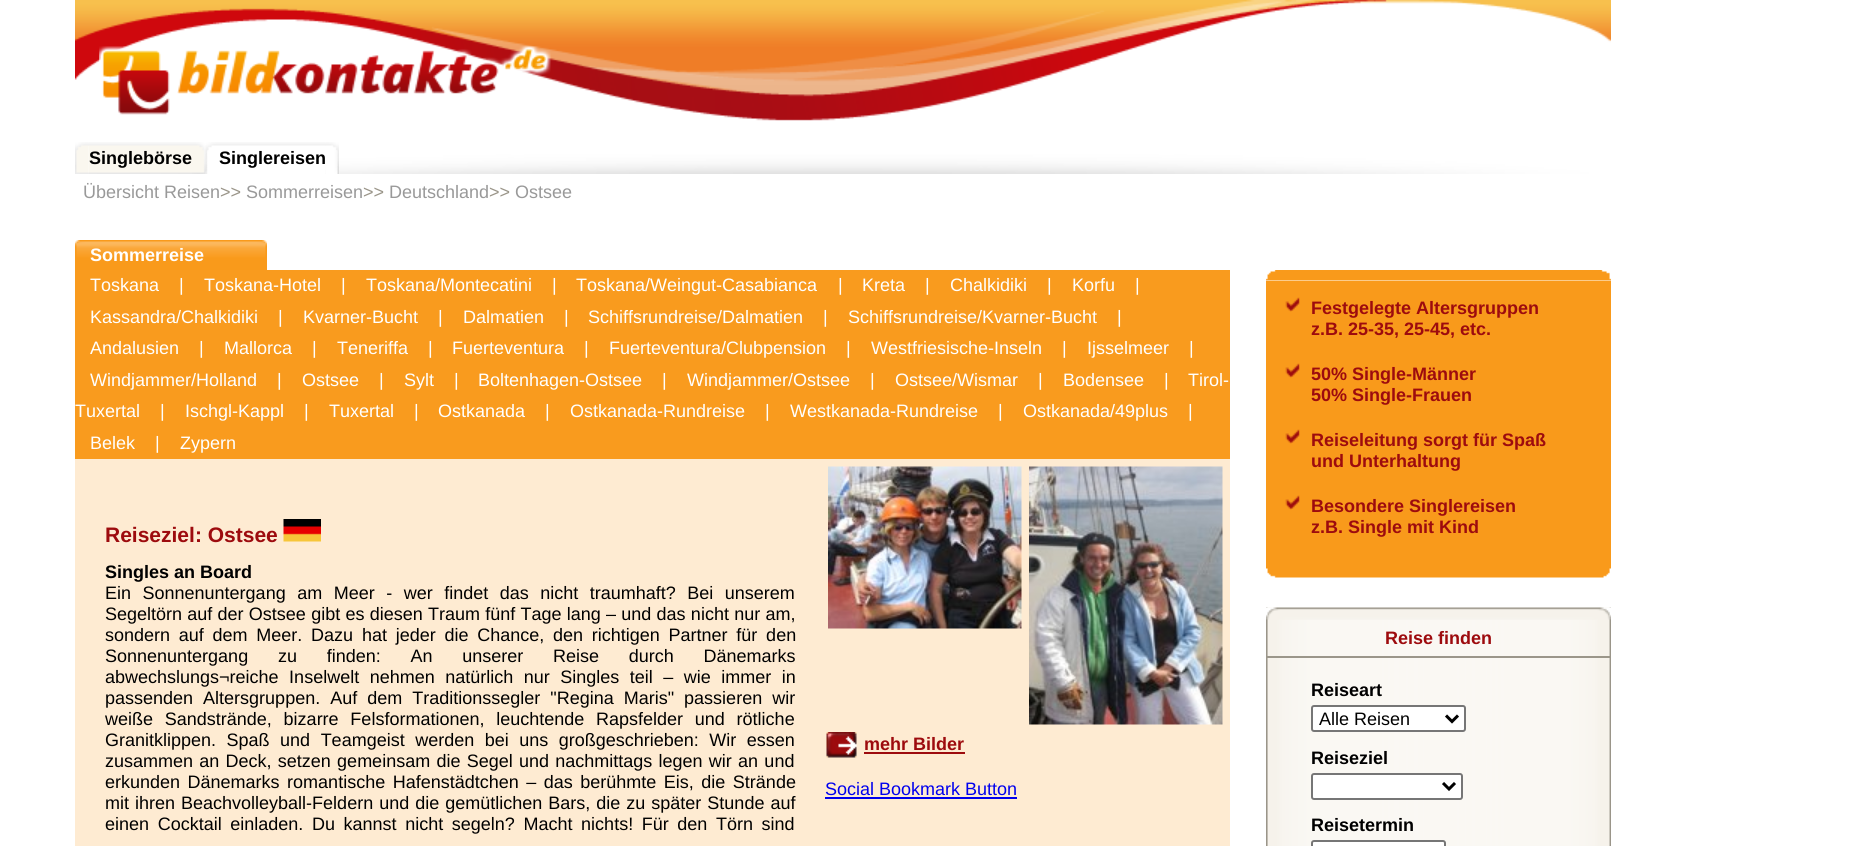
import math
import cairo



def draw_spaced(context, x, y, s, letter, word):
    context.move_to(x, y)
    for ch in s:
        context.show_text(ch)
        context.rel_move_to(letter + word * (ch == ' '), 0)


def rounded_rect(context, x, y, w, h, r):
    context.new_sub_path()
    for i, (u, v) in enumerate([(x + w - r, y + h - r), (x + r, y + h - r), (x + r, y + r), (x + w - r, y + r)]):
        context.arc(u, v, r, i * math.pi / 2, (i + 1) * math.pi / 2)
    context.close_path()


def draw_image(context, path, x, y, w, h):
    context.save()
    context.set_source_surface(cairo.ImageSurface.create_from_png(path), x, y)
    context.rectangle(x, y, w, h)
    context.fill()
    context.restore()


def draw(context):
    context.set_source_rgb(1, 1, 1)
    context.paint()
    draw_image(context, "images/1.png", 75, 0, 1536, 174)
    draw_image(context, "images/2.png", 99, 46, 71, 69)
    draw_image(context, "images/3.png", 177, 46, 374, 48)
    draw_image(context, "images/4.png", 75, 142, 14, 32)
    draw_image(context, "images/5.png", 88, 142, 104, 32)
    draw_image(context, "images/6.png", 192, 142, 14, 32)
    draw_image(context, "images/7.png", 205, 142, 14, 32)
    draw_image(context, "images/8.png", 219, 142, 107, 32)
    draw_image(context, "images/9.png", 325, 142, 14, 32)
    draw_image(context, "images/10.png", 75, 240, 192, 30)
    context.set_source_rgb(249 / 255, 155 / 255, 30 / 255)
    context.rectangle(75, 270, 1155, 189)
    context.fill()
    context.set_source_rgb(254 / 255, 235 / 255, 210 / 255)
    context.rectangle(75, 459, 1155, 387)
    context.fill()
    draw_image(context, "images/11.png", 283, 519, 38, 23)
    draw_image(context, "images/12.png", 828, 466, 194, 163)
    draw_image(context, "images/13.png", 1029, 466, 194, 259)
    draw_image(context, "images/14.png", 826, 732, 31, 26)
    context.set_source_rgb(157 / 255, 11 / 255, 14 / 255)
    context.rectangle(864, 752, 101, 2)
    context.fill()
    context.set_source_rgb(0, 0, 238 / 255)
    context.rectangle(825, 797, 192, 2)
    context.fill()
    draw_image(context, "images/15.png", 1266, 270, 345, 11)
    context.set_source_rgb(249 / 255, 154 / 255, 27 / 255)
    context.rectangle(1266, 281, 345, 285)
    context.fill()
    draw_image(context, "images/16.png", 1285, 297, 15, 15)
    draw_image(context, "images/16.png", 1285, 363, 15, 15)
    draw_image(context, "images/16.png", 1285, 429, 15, 15)
    draw_image(context, "images/16.png", 1285, 495, 15, 15)
    draw_image(context, "images/17.png", 1266, 566, 345, 12)
    draw_image(context, "images/18.png", 1266, 607, 345, 239)
    draw_image(context, "images/19.png", 1266, 607, 345, 13)
    context.set_source_rgb(155 / 255, 150 / 255, 138 / 255)
    context.rectangle(1266, 656, 345, 2)
    context.fill()
    context.set_source_rgb(1, 1, 1)
    rounded_rect(context, 1312, 706, 153, 25, 2)
    context.fill_preserve()
    context.set_source_rgb(118 / 255, 118 / 255, 118 / 255)
    context.stroke()
    context.new_path()
    context.move_to(1446, 715.5)
    context.line_to(1452, 721.5)
    context.line_to(1458, 715.5)
    context.set_source_rgb(0, 0, 0)
    context.set_line_width(3)
    context.stroke()
    context.set_source_rgb(1, 1, 1)
    rounded_rect(context, 1312, 774, 150, 25, 2)
    context.fill_preserve()
    context.set_source_rgb(118 / 255, 118 / 255, 118 / 255)
    context.set_line_width(2)
    context.stroke()
    context.new_path()
    context.move_to(1443, 783)
    context.line_to(1449, 789)
    context.line_to(1455, 783)
    context.set_source_rgb(0, 0, 0)
    context.set_line_width(3)
    context.stroke()
    context.set_source_rgb(1, 1, 1)
    rounded_rect(context, 1312, 841, 133, 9, 2)
    context.fill_preserve()
    context.set_source_rgb(118 / 255, 118 / 255, 118 / 255)
    context.set_line_width(2)
    context.stroke()
    context.select_font_face("Liberation Sans", cairo.FontSlant.NORMAL, cairo.FontWeight.BOLD)
    context.set_font_size(18)
    context.set_source_rgb(0, 0, 0)
    context.move_to(89, 164)
    context.show_text("Singlebörse")
    context.move_to(219, 164)
    context.show_text("Singlereisen")
    context.select_font_face("Liberation Sans")
    context.set_source_rgb(153 / 255, 153 / 255, 153 / 255)
    context.move_to(83, 198)
    context.show_text("Übersicht Reisen")
    context.set_source_rgb(154 / 255, 149 / 255, 137 / 255)
    context.move_to(220, 198)
    context.show_text(">>")
    context.set_source_rgb(153 / 255, 153 / 255, 153 / 255)
    context.move_to(246, 198)
    context.show_text("Sommerreisen")
    context.set_source_rgb(154 / 255, 149 / 255, 137 / 255)
    context.move_to(363, 198)
    context.show_text(">>")
    context.set_source_rgb(153 / 255, 153 / 255, 153 / 255)
    context.move_to(389, 198)
    context.show_text("Deutschland")
    context.set_source_rgb(154 / 255, 149 / 255, 137 / 255)
    context.move_to(489, 198)
    context.show_text(">>")
    context.set_source_rgb(153 / 255, 153 / 255, 153 / 255)
    context.move_to(515, 198)
    context.show_text("Ostsee")
    context.select_font_face("Liberation Sans", cairo.FontSlant.NORMAL, cairo.FontWeight.BOLD)
    context.set_source_rgb(1, 1, 1)
    context.move_to(90, 261)
    context.show_text("Sommerreise")
    context.select_font_face("Liberation Sans")
    context.move_to(90, 291)
    context.show_text("Toskana")
    context.move_to(179, 291)
    context.show_text("|")
    context.move_to(204, 291)
    context.show_text("Toskana-Hotel")
    context.move_to(341, 291)
    context.show_text("|")
    context.move_to(366, 291)
    context.show_text("Toskana/Montecatini")
    context.move_to(552, 291)
    context.show_text("|")
    context.move_to(576, 291)
    context.show_text("Toskana/Weingut-Casabianca")
    context.move_to(838, 291)
    context.show_text("|")
    context.move_to(862, 291)
    context.show_text("Kreta")
    context.move_to(925, 291)
    context.show_text("|")
    context.move_to(950, 291)
    context.show_text("Chalkidiki")
    context.move_to(1047, 291)
    context.show_text("|")
    context.move_to(1072, 291)
    context.show_text("Korfu")
    context.move_to(1135, 291)
    context.show_text("|")
    context.move_to(90, 323)
    context.show_text("Kassandra/Chalkidiki")
    context.move_to(278, 323)
    context.show_text("|")
    context.move_to(303, 323)
    context.show_text("Kvarner-Bucht")
    context.move_to(438, 323)
    context.show_text("|")
    context.move_to(463, 323)
    context.show_text("Dalmatien")
    context.move_to(564, 323)
    context.show_text("|")
    context.move_to(588, 323)
    context.show_text("Schiffsrundreise/Dalmatien")
    context.move_to(823, 323)
    context.show_text("|")
    context.move_to(848, 323)
    context.show_text("Schiffsrundreise/Kvarner-Bucht")
    context.move_to(1117, 323)
    context.show_text("|")
    context.move_to(90, 354)
    context.show_text("Andalusien")
    context.move_to(199, 354)
    context.show_text("|")
    context.move_to(224, 354)
    context.show_text("Mallorca")
    context.move_to(312, 354)
    context.show_text("|")
    context.move_to(337, 354)
    context.show_text("Teneriffa")
    context.move_to(428, 354)
    context.show_text("|")
    context.move_to(452, 354)
    context.show_text("Fuerteventura")
    context.move_to(584, 354)
    context.show_text("|")
    context.move_to(609, 354)
    context.show_text("Fuerteventura/Clubpension")
    context.move_to(846, 354)
    context.show_text("|")
    context.move_to(871, 354)
    context.show_text("Westfriesische-Inseln")
    context.move_to(1062, 354)
    context.show_text("|")
    context.move_to(1087, 354)
    context.show_text("Ijsselmeer")
    context.move_to(1189, 354)
    context.show_text("|")
    context.move_to(90, 386)
    context.show_text("Windjammer/Holland")
    context.move_to(277, 386)
    context.show_text("|")
    context.move_to(302, 386)
    context.show_text("Ostsee")
    context.move_to(379, 386)
    context.show_text("|")
    context.move_to(404, 386)
    context.show_text("Sylt")
    context.move_to(454, 386)
    context.show_text("|")
    context.move_to(478, 386)
    context.show_text("Boltenhagen-Ostsee")
    context.move_to(662, 386)
    context.show_text("|")
    context.move_to(687, 386)
    context.show_text("Windjammer/Ostsee")
    context.move_to(870, 386)
    context.show_text("|")
    context.move_to(895, 386)
    context.show_text("Ostsee/Wismar")
    context.move_to(1038, 386)
    context.show_text("|")
    context.move_to(1063, 386)
    context.show_text("Bodensee")
    context.move_to(1164, 386)
    context.show_text("|")
    context.move_to(1188, 386)
    context.show_text("Tirol-")
    context.move_to(75, 417)
    context.show_text("Tuxertal")
    context.move_to(160, 417)
    context.show_text("|")
    context.move_to(185, 417)
    context.show_text("Ischgl-Kappl")
    context.move_to(304, 417)
    context.show_text("|")
    context.move_to(329, 417)
    context.show_text("Tuxertal")
    context.move_to(414, 417)
    context.show_text("|")
    context.move_to(438, 417)
    context.show_text("Ostkanada")
    context.move_to(545, 417)
    context.show_text("|")
    context.move_to(570, 417)
    context.show_text("Ostkanada-Rundreise")
    context.move_to(765, 417)
    context.show_text("|")
    context.move_to(790, 417)
    context.show_text("Westkanada-Rundreise")
    context.move_to(998, 417)
    context.show_text("|")
    context.move_to(1023, 417)
    context.show_text("Ostkanada/49plus")
    context.move_to(1188, 417)
    context.show_text("|")
    context.move_to(90, 449)
    context.show_text("Belek")
    context.move_to(155, 449)
    context.show_text("|")
    context.move_to(180, 449)
    context.show_text("Zypern")
    context.select_font_face("Liberation Sans", cairo.FontSlant.NORMAL, cairo.FontWeight.BOLD)
    context.set_font_size(21)
    context.set_source_rgb(157 / 255, 11 / 255, 14 / 255)
    context.move_to(105, 542)
    context.show_text("Reiseziel: Ostsee")
    context.set_font_size(18)
    context.set_source_rgb(0, 0, 0)
    context.move_to(105, 578)
    context.show_text("Singles an Board")
    context.select_font_face("Liberation Sans")
    draw_spaced(context, 105, 599, "Ein Sonnenuntergang am Meer - wer findet das nicht traumhaft? Bei unserem", 0, 6.5)
    draw_spaced(context, 105, 620, "Segeltörn auf der Ostsee gibt es diesen Traum fünf Tage lang – und das nicht nur am,", 0, 0.25)
    draw_spaced(context, 105, 641, "sondern auf dem Meer. Dazu hat jeder die Chance, den richtigen Partner für den", 0, 3.75)
    draw_spaced(context, 105, 662, "Sonnenuntergang zu finden: An unserer Reise durch Dänemarks", 0, 24.75)
    draw_spaced(context, 105, 683, "abwechslungs¬reiche Inselwelt nehmen natürlich nur Singles teil – wie immer in", 0, 5.5)
    draw_spaced(context, 105, 704, "passenden Altersgruppen. Auf dem Traditionssegler \"Regina Maris\" passieren wir", 0, 5)
    draw_spaced(context, 105, 725, "weiße Sandstrände, bizarre Felsformationen, leuchtende Rapsfelder und rötliche", 0, 6.75)
    draw_spaced(context, 105, 746, "Granitklippen. Spaß und Teamgeist werden bei uns großgeschrieben: Wir essen", 0, 5.5)
    draw_spaced(context, 105, 767, "zusammen an Deck, setzen gemeinsam die Segel und nachmittags legen wir an und", 0, 1.25)
    draw_spaced(context, 105, 788, "erkunden Dänemarks romantische Hafenstädtchen – das berühmte Eis, die Strände", 0, 2.5)
    draw_spaced(context, 105, 809, "mit ihren Beachvolleyball-Feldern und die gemütlichen Bars, die zu später Stunde auf", 0, 1)
    draw_spaced(context, 105, 830, "einen Cocktail einladen. Du kannst nicht segeln? Macht nichts! Für den Törn sind", 0, 3.6)
    context.select_font_face("Liberation Sans", cairo.FontSlant.NORMAL, cairo.FontWeight.BOLD)
    context.set_source_rgb(157 / 255, 11 / 255, 14 / 255)
    context.move_to(864, 750)
    context.show_text("mehr Bilder")
    context.select_font_face("Liberation Sans")
    context.set_source_rgb(0, 0, 238 / 255)
    context.move_to(825, 795)
    context.show_text("Social Bookmark Button")
    context.select_font_face("Liberation Sans", cairo.FontSlant.NORMAL, cairo.FontWeight.BOLD)
    context.set_source_rgb(157 / 255, 11 / 255, 14 / 255)
    context.move_to(1311, 314)
    context.show_text("Festgelegte Altersgruppen")
    context.move_to(1311, 335)
    context.show_text("z.B. 25-35, 25-45, etc.")
    context.move_to(1311, 380)
    context.show_text("50% Single-Männer")
    context.move_to(1311, 401)
    context.show_text("50% Single-Frauen")
    context.move_to(1311, 446)
    context.show_text("Reiseleitung sorgt für Spaß")
    context.move_to(1311, 467)
    context.show_text("und Unterhaltung")
    context.move_to(1311, 512)
    context.show_text("Besondere Singlereisen")
    context.move_to(1311, 533)
    context.show_text("z.B. Single mit Kind")
    context.move_to(1385, 644)
    context.show_text("Reise finden")
    context.set_source_rgb(0, 0, 0)
    context.move_to(1311, 696)
    context.show_text("Reiseart")
    context.select_font_face("Liberation Sans")
    context.move_to(1319, 725)
    context.show_text("Alle Reisen")
    context.select_font_face("Liberation Sans", cairo.FontSlant.NORMAL, cairo.FontWeight.BOLD)
    context.move_to(1311, 764)
    context.show_text("Reiseziel")
    context.move_to(1311, 831)
    context.show_text("Reisetermin")


surface = cairo.ImageSurface(cairo.Format.RGB24, 1865, 846)
context = cairo.Context(surface)
options = cairo.FontOptions()
options.set_hint_metrics(cairo.HintMetrics.OFF)
options.set_hint_style(cairo.HintStyle.NONE)
context.set_font_options(options)
context.set_miter_limit(4)
draw(context)
surface.write_to_png("out.png")
